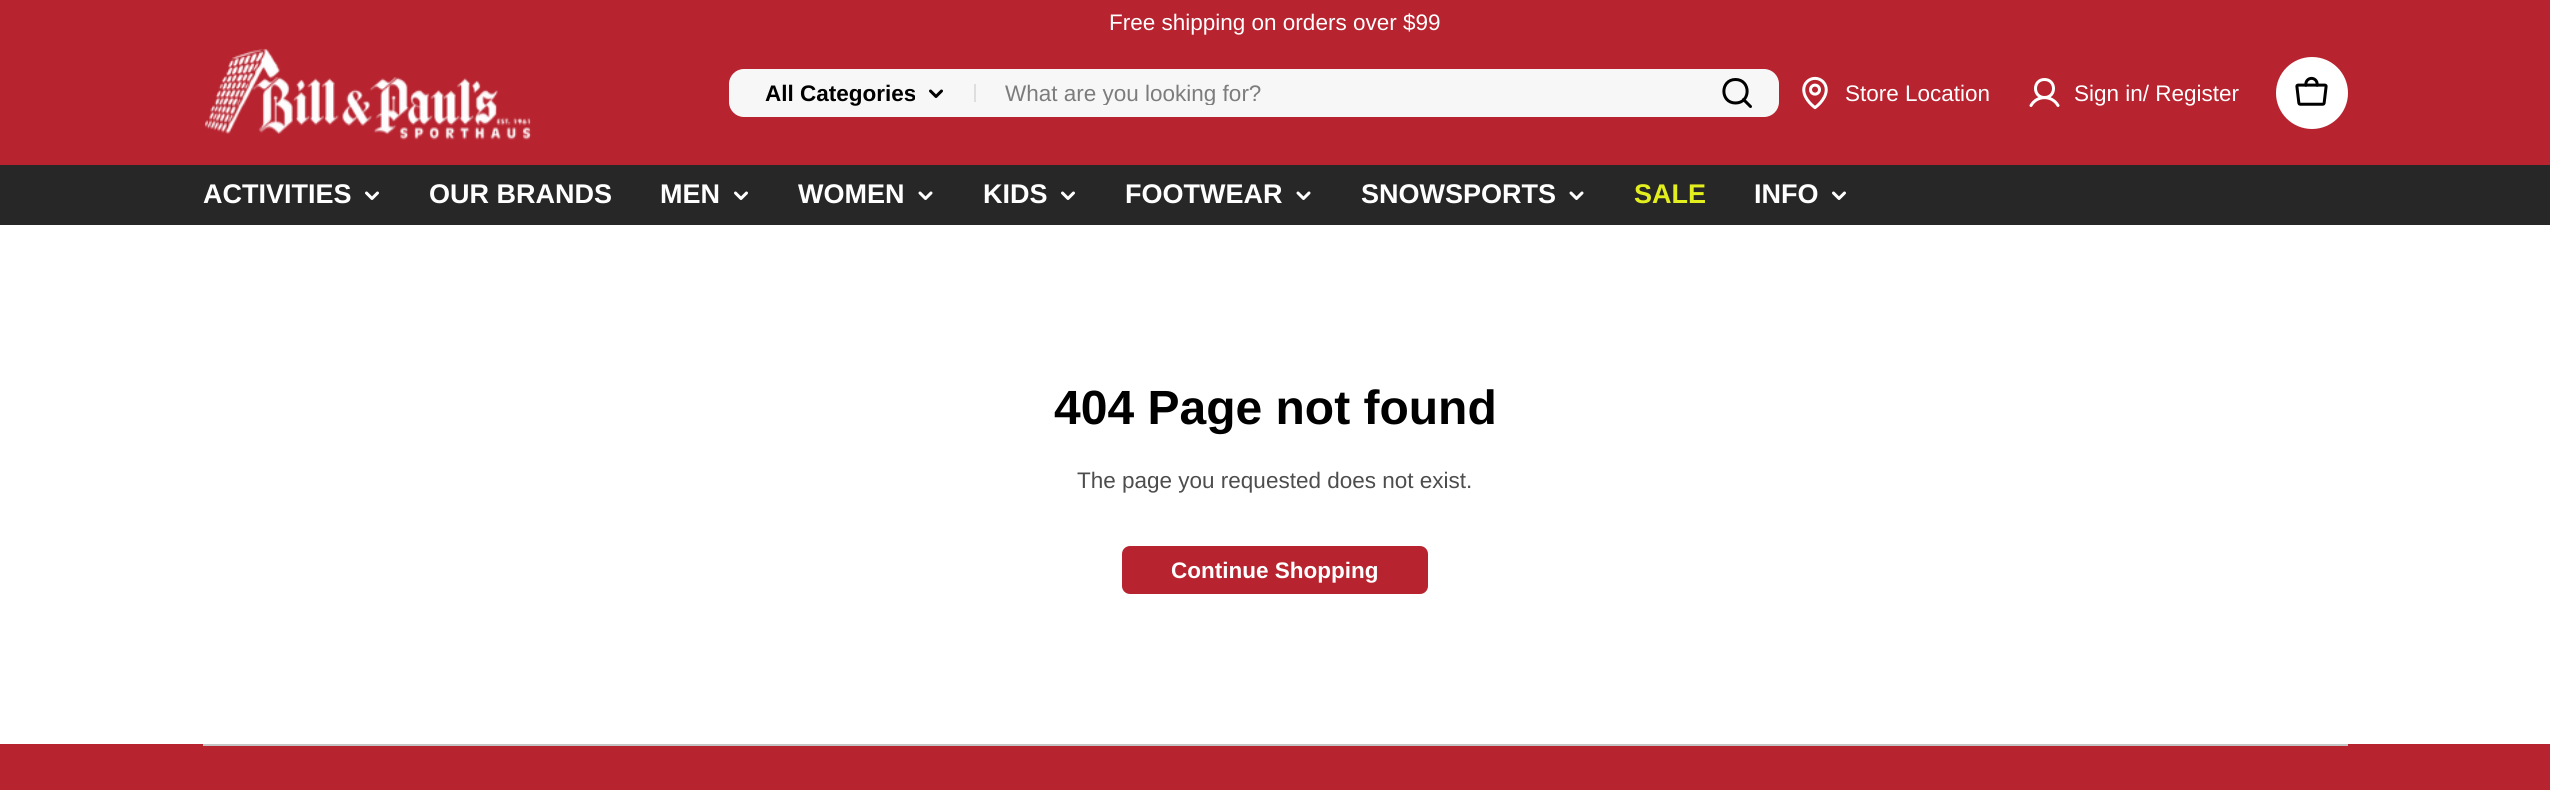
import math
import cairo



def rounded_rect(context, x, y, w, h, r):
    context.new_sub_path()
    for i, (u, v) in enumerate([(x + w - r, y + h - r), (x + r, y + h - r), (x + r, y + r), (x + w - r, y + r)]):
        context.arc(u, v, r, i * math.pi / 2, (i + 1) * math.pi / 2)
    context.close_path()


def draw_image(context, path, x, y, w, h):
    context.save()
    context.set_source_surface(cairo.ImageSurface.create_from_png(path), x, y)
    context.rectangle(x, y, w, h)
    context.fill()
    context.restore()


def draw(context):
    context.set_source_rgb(1, 1, 1)
    context.paint()
    context.set_source_rgb(183 / 255, 35 / 255, 47 / 255)
    context.rectangle(0, 0, 2550, 165)
    context.fill()
    draw_image(context, "images/1.png", 204, 48, 328, 92)
    context.set_source_rgb(247 / 255, 247 / 255, 247 / 255)
    rounded_rect(context, 729, 69, 1050, 48, 15)
    context.fill()
    context.new_path()
    context.move_to(941.5, 91)
    context.line_to(936, 96.5)
    context.line_to(930.5, 91)
    context.set_source_rgb(0, 0, 0)
    context.set_line_width(3)
    context.set_line_cap(cairo.LineCap.ROUND)
    context.set_line_join(cairo.LineJoin.ROUND)
    context.stroke()
    context.set_source_rgb(222 / 255, 222 / 255, 222 / 255)
    context.rectangle(974, 84, 2, 18)
    context.fill()
    context.new_path()
    context.move_to(1735.5, 103)
    context.curve_to(1751, 103, 1751, 79.5, 1735.5, 79.5)
    context.curve_to(1720, 79.5, 1720, 103, 1735.5, 103)
    context.close_path()
    context.move_to(1743.5, 99.5)
    context.line_to(1750.5, 106.5)
    context.set_source_rgb(0, 0, 0)
    context.stroke()
    draw_image(context, "images/2.png", 1802, 76, 26, 34)
    context.new_path()
    context.move_to(2044.5, 97.5)
    context.curve_to(2056.5, 97.5, 2056.5, 79.5, 2044.5, 79.5)
    context.curve_to(2032.5, 79.5, 2032.5, 97.5, 2044.5, 97.5)
    context.close_path()
    context.move_to(2031, 105.5)
    context.curve_to(2037, 95, 2052, 95, 2058, 105.5)
    context.set_source_rgb(1, 1, 1)
    context.stroke()
    context.arc(2312, 93, 36, 0, 2 * math.pi)
    context.fill()
    draw_image(context, "images/3.png", 2295, 76, 33, 30)
    context.set_source_rgb(40 / 255, 39 / 255, 39 / 255)
    context.rectangle(0, 165, 2550, 60)
    context.fill()
    context.new_path()
    context.move_to(377.5, 193)
    context.line_to(372, 198.5)
    context.line_to(366.5, 193)
    context.set_source_rgb(1, 1, 1)
    context.stroke()
    context.new_path()
    context.move_to(746.5, 193)
    context.line_to(741, 198.5)
    context.line_to(735.5, 193)
    context.stroke()
    context.new_path()
    context.move_to(931, 193)
    context.line_to(925.5, 198.5)
    context.line_to(920, 193)
    context.stroke()
    context.new_path()
    context.move_to(1073.5, 193)
    context.line_to(1068, 198.5)
    context.line_to(1062.5, 193)
    context.stroke()
    context.new_path()
    context.move_to(1309, 193)
    context.line_to(1303.5, 198.5)
    context.line_to(1298, 193)
    context.stroke()
    context.new_path()
    context.move_to(1582, 193)
    context.line_to(1576.5, 198.5)
    context.line_to(1571, 193)
    context.stroke()
    context.new_path()
    context.move_to(1844.5, 193)
    context.line_to(1839, 198.5)
    context.line_to(1833.5, 193)
    context.stroke()
    context.set_source_rgb(183 / 255, 35 / 255, 47 / 255)
    rounded_rect(context, 1123, 547, 304, 46, 7)
    context.fill_preserve()
    context.set_line_width(2)
    context.set_line_cap(cairo.LineCap.BUTT)
    context.set_line_join(cairo.LineJoin.MITER)
    context.stroke()
    context.rectangle(0, 744, 2550, 46)
    context.fill()
    context.set_source_rgb(196 / 255, 196 / 255, 196 / 255)
    context.rectangle(203, 744, 2145, 2)
    context.fill()
    context.select_font_face("Liberation Sans")
    context.set_font_size(22.5)
    context.set_source_rgb(1, 1, 1)
    context.move_to(1109, 30)
    context.show_text("Free shipping on orders over $99")
    context.save()
    context.rectangle(765, 69, 150, 48)
    context.clip()
    context.select_font_face("Liberation Sans", cairo.FontSlant.NORMAL, cairo.FontWeight.BOLD)
    context.set_source_rgb(0, 0, 0)
    context.move_to(765, 101)
    context.show_text("All Categories")
    context.restore()
    context.save()
    context.rectangle(1005, 80, 693, 25)
    context.clip()
    context.set_source_rgb(124 / 255, 124 / 255, 124 / 255)
    context.move_to(1005, 101)
    context.show_text("What are you looking for?")
    context.restore()
    context.move_to(1845, 101)
    context.show_text("Store Location")
    context.move_to(2074, 101)
    context.show_text("Sign in/ Register")
    context.select_font_face("Liberation Sans", cairo.FontSlant.NORMAL, cairo.FontWeight.BOLD)
    context.set_font_size(27)
    context.move_to(203, 203)
    context.show_text("ACTIVITIES")
    context.move_to(429, 203)
    context.show_text("OUR BRANDS")
    context.move_to(660, 203)
    context.show_text("MEN")
    context.move_to(798, 203)
    context.show_text("WOMEN")
    context.move_to(983, 203)
    context.show_text("KIDS")
    context.move_to(1125, 203)
    context.show_text("FOOTWEAR")
    context.move_to(1361, 203)
    context.show_text("SNOWSPORTS")
    context.set_source_rgb(227 / 255, 238 / 255, 30 / 255)
    context.move_to(1634, 203)
    context.show_text("SALE")
    context.set_source_rgb(1, 1, 1)
    context.move_to(1754, 203)
    context.show_text("INFO")
    context.set_font_size(48)
    context.set_source_rgb(0, 0, 0)
    context.move_to(1054, 424)
    context.show_text("404 Page not found")
    context.select_font_face("Liberation Sans")
    context.set_font_size(22.5)
    context.set_source_rgb(77 / 255, 77 / 255, 77 / 255)
    context.move_to(1077, 488)
    context.show_text("The page you requested does not exist.")
    context.select_font_face("Liberation Sans", cairo.FontSlant.NORMAL, cairo.FontWeight.BOLD)
    context.set_source_rgb(1, 1, 1)
    context.move_to(1171, 578)
    context.show_text("Continue Shopping")


surface = cairo.ImageSurface(cairo.Format.RGB24, 2550, 790)
context = cairo.Context(surface)
options = cairo.FontOptions()
options.set_hint_metrics(cairo.HintMetrics.OFF)
options.set_hint_style(cairo.HintStyle.NONE)
context.set_font_options(options)
context.set_miter_limit(4)
draw(context)
surface.write_to_png("out.png")
